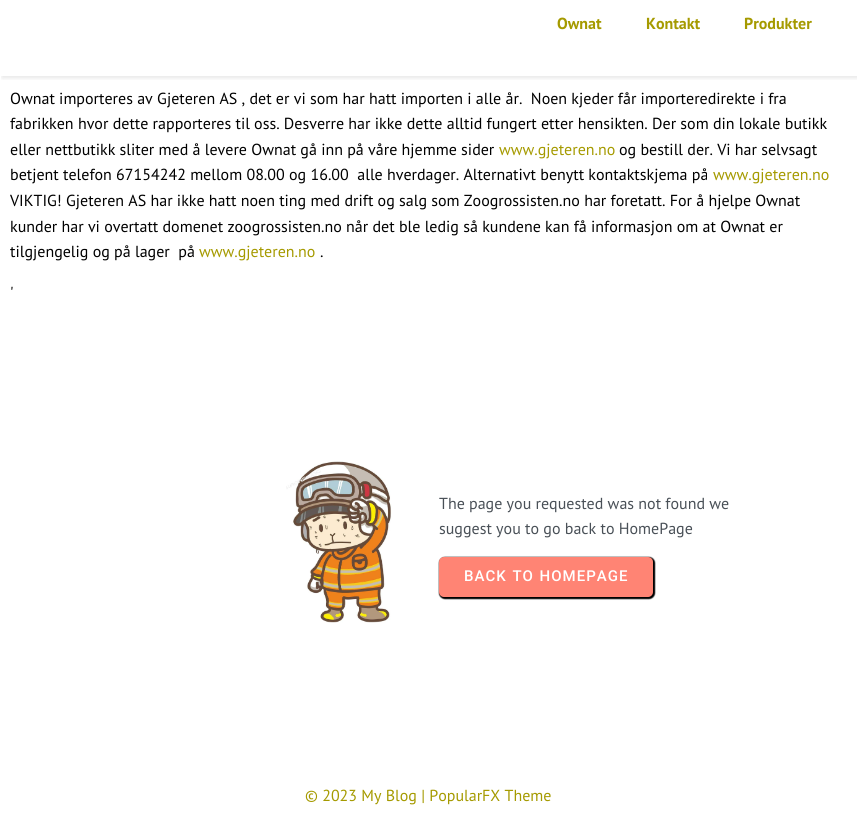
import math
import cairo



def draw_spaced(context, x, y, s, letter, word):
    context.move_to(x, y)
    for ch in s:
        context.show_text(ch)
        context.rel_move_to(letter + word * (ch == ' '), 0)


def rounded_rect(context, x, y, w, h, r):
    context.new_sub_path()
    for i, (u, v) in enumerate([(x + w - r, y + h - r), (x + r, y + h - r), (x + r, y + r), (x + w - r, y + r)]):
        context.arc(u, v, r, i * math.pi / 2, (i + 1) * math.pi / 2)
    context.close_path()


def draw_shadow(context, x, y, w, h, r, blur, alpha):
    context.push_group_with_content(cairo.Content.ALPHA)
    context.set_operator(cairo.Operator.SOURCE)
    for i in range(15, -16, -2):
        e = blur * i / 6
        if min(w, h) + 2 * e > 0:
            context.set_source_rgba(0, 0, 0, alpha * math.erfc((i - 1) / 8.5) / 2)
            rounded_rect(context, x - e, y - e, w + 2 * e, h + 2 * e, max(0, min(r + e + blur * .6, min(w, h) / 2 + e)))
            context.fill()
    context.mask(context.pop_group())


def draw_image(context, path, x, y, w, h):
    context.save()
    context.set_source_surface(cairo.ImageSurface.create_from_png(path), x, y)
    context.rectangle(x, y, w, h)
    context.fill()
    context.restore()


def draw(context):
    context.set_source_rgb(1, 1, 1)
    context.paint()
    context.save()
    context.rectangle(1, 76, 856, 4)
    context.clip()
    context.set_source_rgb(0, 0, 0)
    draw_shadow(context, 2, -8, 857, 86, 0, 2.5, 0.1)
    context.restore()
    draw_image(context, "images/1.png", 286, 461, 106, 162)
    context.set_source_rgb(0, 0, 0)
    draw_shadow(context, 439, 557, 216, 42, 6, 0.5, 1)
    context.set_source_rgb(1, 132 / 255, 116 / 255)
    rounded_rect(context, 439, 557, 214, 40, 5)
    context.fill()
    context.select_font_face("PT Sans", cairo.FontSlant.NORMAL, cairo.FontWeight.BOLD)
    context.set_font_size(16)
    context.set_source_rgb(165 / 255, 154 / 255, 0)
    context.move_to(557, 29)
    context.show_text("Ownat")
    context.move_to(646, 29)
    context.show_text("Kontakt")
    context.move_to(744, 29)
    context.show_text("Produkter")
    context.select_font_face("PT Sans")
    context.set_source_rgb(0, 0, 0)
    context.move_to(10, 104)
    context.show_text("Ownat importeres av Gjeteren AS , det er vi som har hatt importen i alle år.  Noen kjeder får importeredirekte i fra")
    context.move_to(10, 129)
    context.show_text("fabrikken hvor dette rapporteres til oss. Desverre har ikke dette alltid fungert etter hensikten. Der som din lokale butikk")
    context.move_to(10, 155)
    context.show_text("eller nettbutikk sliter med å levere Ownat gå inn på våre hjemme sider")
    context.set_source_rgb(165 / 255, 154 / 255, 0)
    context.move_to(499, 155)
    context.show_text("www.gjeteren.no")
    context.set_source_rgb(0, 0, 0)
    context.move_to(619, 155)
    context.show_text("og bestill der. Vi har selvsagt")
    context.move_to(10, 180)
    context.show_text("betjent telefon 67154242 mellom 08.00 og 16.00  alle hverdager. Alternativt benytt kontaktskjema på")
    context.set_source_rgb(165 / 255, 154 / 255, 0)
    context.move_to(713, 180)
    context.show_text("www.gjeteren.no")
    context.set_source_rgb(0, 0, 0)
    context.move_to(10, 206)
    context.show_text("VIKTIG! Gjeteren AS har ikke hatt noen ting med drift og salg som Zoogrossisten.no har foretatt. For å hjelpe Ownat")
    context.move_to(10, 232)
    context.show_text("kunder har vi overtatt domenet zoogrossisten.no når det ble ledig så kundene kan få informasjon om at Ownat er")
    context.move_to(10, 257)
    context.show_text("tilgjengelig og på lager  på")
    context.set_source_rgb(165 / 255, 154 / 255, 0)
    context.move_to(199, 257)
    context.show_text("www.gjeteren.no")
    context.set_source_rgb(0, 0, 0)
    context.move_to(320, 257)
    context.show_text(".")
    context.move_to(10, 298)
    context.show_text("'")
    context.set_source_rgb(73 / 255, 80 / 255, 87 / 255)
    context.move_to(439, 509)
    context.show_text("The page you requested was not found we")
    context.move_to(439, 534)
    context.show_text("suggest you to go back to HomePage")
    context.select_font_face("Roboto Medium")
    context.set_font_size(15)
    context.set_source_rgb(1, 1, 1)
    draw_spaced(context, 464, 581, "BACK TO HOMEPAGE", 1, 1)
    context.select_font_face("PT Sans")
    context.set_font_size(16)
    context.set_source_rgb(165 / 255, 154 / 255, 0)
    context.move_to(305, 801)
    context.show_text("© 2023 My Blog | PopularFX Theme")


surface = cairo.ImageSurface(cairo.Format.RGB24, 857, 814)
context = cairo.Context(surface)
options = cairo.FontOptions()
options.set_hint_metrics(cairo.HintMetrics.OFF)
options.set_hint_style(cairo.HintStyle.NONE)
context.set_font_options(options)
context.set_miter_limit(4)
draw(context)
surface.write_to_png("out.png")
